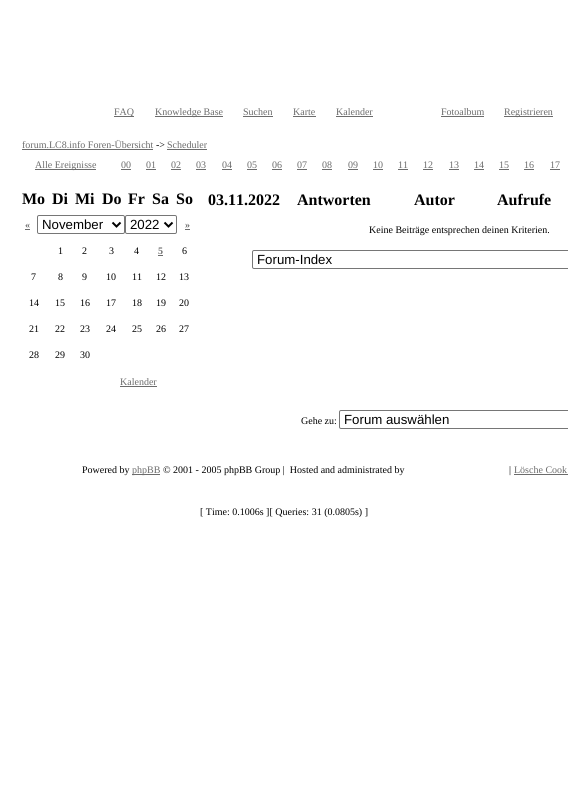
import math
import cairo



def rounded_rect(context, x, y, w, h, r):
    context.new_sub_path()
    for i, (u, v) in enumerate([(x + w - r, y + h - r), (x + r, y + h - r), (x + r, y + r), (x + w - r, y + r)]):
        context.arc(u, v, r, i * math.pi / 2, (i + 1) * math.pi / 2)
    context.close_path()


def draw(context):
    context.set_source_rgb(1, 1, 1)
    context.paint()
    context.set_source_rgb(108 / 255, 108 / 255, 108 / 255)
    context.rectangle(114, 116, 20, 1)
    context.fill()
    context.rectangle(155, 116, 68, 1)
    context.fill()
    context.rectangle(243, 116, 30, 1)
    context.fill()
    context.rectangle(293, 116, 23, 1)
    context.fill()
    context.rectangle(336, 116, 37, 1)
    context.fill()
    context.rectangle(441, 116, 43, 1)
    context.fill()
    context.rectangle(504, 116, 49, 1)
    context.fill()
    context.rectangle(22, 149, 131, 1)
    context.fill()
    context.rectangle(167, 149, 40, 1)
    context.fill()
    context.rectangle(35, 169, 61, 1)
    context.fill()
    context.rectangle(121, 169, 10, 1)
    context.fill()
    context.rectangle(146, 169, 10, 1)
    context.fill()
    context.rectangle(171, 169, 10, 1)
    context.fill()
    context.rectangle(196, 169, 10, 1)
    context.fill()
    context.rectangle(222, 169, 10, 1)
    context.fill()
    context.rectangle(247, 169, 10, 1)
    context.fill()
    context.rectangle(272, 169, 10, 1)
    context.fill()
    context.rectangle(297, 169, 10, 1)
    context.fill()
    context.rectangle(322, 169, 10, 1)
    context.fill()
    context.rectangle(348, 169, 10, 1)
    context.fill()
    context.rectangle(373, 169, 10, 1)
    context.fill()
    context.rectangle(398, 169, 10, 1)
    context.fill()
    context.rectangle(423, 169, 10, 1)
    context.fill()
    context.rectangle(449, 169, 10, 1)
    context.fill()
    context.rectangle(474, 169, 10, 1)
    context.fill()
    context.rectangle(499, 169, 10, 1)
    context.fill()
    context.rectangle(524, 169, 10, 1)
    context.fill()
    context.rectangle(550, 169, 10, 1)
    context.fill()
    context.rectangle(25, 229, 5, 1)
    context.fill()
    rounded_rect(context, 37.5, 215.5, 87, 18, 1.5)
    context.set_source_rgb(118 / 255, 118 / 255, 118 / 255)
    context.set_line_width(1)
    context.stroke()
    context.new_path()
    context.move_to(112.5, 222.5)
    context.line_to(116.5, 226.5)
    context.line_to(120.5, 222.5)
    context.set_source_rgb(0, 0, 0)
    context.set_line_width(2)
    context.stroke()
    rounded_rect(context, 125.5, 215.5, 51, 18, 1.5)
    context.set_source_rgb(118 / 255, 118 / 255, 118 / 255)
    context.set_line_width(1)
    context.stroke()
    context.new_path()
    context.move_to(164.5, 222.5)
    context.line_to(168.5, 226.5)
    context.line_to(172.5, 222.5)
    context.set_source_rgb(0, 0, 0)
    context.set_line_width(2)
    context.stroke()
    context.set_source_rgb(108 / 255, 108 / 255, 108 / 255)
    context.rectangle(185, 229, 5, 1)
    context.fill()
    context.rectangle(158, 255, 5, 1)
    context.fill()
    context.rectangle(120, 386, 37, 1)
    context.fill()
    rounded_rect(context, 252.5, 250.5, 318, 18, 1.5)
    context.set_source_rgb(118 / 255, 118 / 255, 118 / 255)
    context.set_line_width(1)
    context.stroke()
    rounded_rect(context, 339.5, 410.5, 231, 18, 1.5)
    context.stroke()
    context.set_source_rgb(108 / 255, 108 / 255, 108 / 255)
    context.rectangle(132, 474, 28, 1)
    context.fill()
    context.rectangle(514, 474, 54, 1)
    context.fill()
    context.select_font_face("Liberation Serif")
    context.set_font_size(10)
    context.move_to(114, 115)
    context.show_text("FAQ")
    context.move_to(155, 115)
    context.show_text("Knowledge Base")
    context.move_to(243, 115)
    context.show_text("Suchen")
    context.move_to(293, 115)
    context.show_text("Karte")
    context.move_to(336, 115)
    context.show_text("Kalender")
    context.move_to(441, 115)
    context.show_text("Fotoalbum")
    context.move_to(504, 115)
    context.show_text("Registrieren")
    context.move_to(22, 148)
    context.show_text("forum.LC8.info Foren-Übersicht")
    context.set_source_rgb(0, 0, 0)
    context.move_to(156, 148)
    context.show_text("->")
    context.set_source_rgb(108 / 255, 108 / 255, 108 / 255)
    context.move_to(167, 148)
    context.show_text("Scheduler")
    context.move_to(35, 168)
    context.show_text("Alle Ereignisse")
    context.move_to(121, 168)
    context.show_text("00")
    context.move_to(146, 168)
    context.show_text("01")
    context.move_to(171, 168)
    context.show_text("02")
    context.move_to(196, 168)
    context.show_text("03")
    context.move_to(222, 168)
    context.show_text("04")
    context.move_to(247, 168)
    context.show_text("05")
    context.move_to(272, 168)
    context.show_text("06")
    context.move_to(297, 168)
    context.show_text("07")
    context.move_to(322, 168)
    context.show_text("08")
    context.move_to(348, 168)
    context.show_text("09")
    context.move_to(373, 168)
    context.show_text("10")
    context.move_to(398, 168)
    context.show_text("11")
    context.move_to(423, 168)
    context.show_text("12")
    context.move_to(449, 168)
    context.show_text("13")
    context.move_to(474, 168)
    context.show_text("14")
    context.move_to(499, 168)
    context.show_text("15")
    context.move_to(524, 168)
    context.show_text("16")
    context.move_to(550, 168)
    context.show_text("17")
    context.select_font_face("Liberation Serif", cairo.FontSlant.NORMAL, cairo.FontWeight.BOLD)
    context.set_font_size(16)
    context.set_source_rgb(0, 0, 0)
    context.move_to(22, 204)
    context.show_text("Mo")
    context.move_to(52, 204)
    context.show_text("Di")
    context.move_to(75, 204)
    context.show_text("Mi")
    context.move_to(102, 204)
    context.show_text("Do")
    context.move_to(128, 204)
    context.show_text("Fr")
    context.move_to(152, 204)
    context.show_text("Sa")
    context.move_to(176, 204)
    context.show_text("So")
    context.set_font_size(10)
    context.set_source_rgb(108 / 255, 108 / 255, 108 / 255)
    context.move_to(25, 228)
    context.show_text("«")
    context.select_font_face("Liberation Sans")
    context.set_font_size(13.25)
    context.set_source_rgb(0, 0, 0)
    context.move_to(42, 229)
    context.show_text("November")
    context.move_to(130, 229)
    context.show_text("2022")
    context.select_font_face("Liberation Serif", cairo.FontSlant.NORMAL, cairo.FontWeight.BOLD)
    context.set_font_size(10)
    context.set_source_rgb(108 / 255, 108 / 255, 108 / 255)
    context.move_to(185, 228)
    context.show_text("»")
    context.select_font_face("Liberation Serif")
    context.set_source_rgb(0, 0, 0)
    context.move_to(58, 254)
    context.show_text("1")
    context.move_to(82, 254)
    context.show_text("2")
    context.move_to(109, 254)
    context.show_text("3")
    context.move_to(134, 254)
    context.show_text("4")
    context.select_font_face("Liberation Serif", cairo.FontSlant.NORMAL, cairo.FontWeight.BOLD)
    context.set_source_rgb(108 / 255, 108 / 255, 108 / 255)
    context.move_to(158, 254)
    context.show_text("5")
    context.select_font_face("Liberation Serif")
    context.set_source_rgb(0, 0, 0)
    context.move_to(182, 254)
    context.show_text("6")
    context.move_to(31, 280)
    context.show_text("7")
    context.move_to(58, 280)
    context.show_text("8")
    context.move_to(82, 280)
    context.show_text("9")
    context.move_to(106, 280)
    context.show_text("10")
    context.move_to(132, 280)
    context.show_text("11")
    context.move_to(156, 280)
    context.show_text("12")
    context.move_to(179, 280)
    context.show_text("13")
    context.move_to(29, 306)
    context.show_text("14")
    context.move_to(55, 306)
    context.show_text("15")
    context.move_to(80, 306)
    context.show_text("16")
    context.move_to(106, 306)
    context.show_text("17")
    context.move_to(132, 306)
    context.show_text("18")
    context.move_to(156, 306)
    context.show_text("19")
    context.move_to(179, 306)
    context.show_text("20")
    context.move_to(29, 332)
    context.show_text("21")
    context.move_to(55, 332)
    context.show_text("22")
    context.move_to(80, 332)
    context.show_text("23")
    context.move_to(106, 332)
    context.show_text("24")
    context.move_to(132, 332)
    context.show_text("25")
    context.move_to(156, 332)
    context.show_text("26")
    context.move_to(179, 332)
    context.show_text("27")
    context.move_to(29, 358)
    context.show_text("28")
    context.move_to(55, 358)
    context.show_text("29")
    context.move_to(80, 358)
    context.show_text("30")
    context.set_source_rgb(108 / 255, 108 / 255, 108 / 255)
    context.move_to(120, 385)
    context.show_text("Kalender")
    context.select_font_face("Liberation Serif", cairo.FontSlant.NORMAL, cairo.FontWeight.BOLD)
    context.set_font_size(16)
    context.set_source_rgb(0, 0, 0)
    context.move_to(208, 205)
    context.show_text("03.11.2022")
    context.move_to(297, 205)
    context.show_text("Antworten")
    context.move_to(414, 205)
    context.show_text("Autor")
    context.move_to(497, 205)
    context.show_text("Aufrufe")
    context.select_font_face("Liberation Serif")
    context.set_font_size(10)
    context.move_to(369, 233)
    context.show_text("Keine Beiträge entsprechen deinen Kriterien.")
    context.select_font_face("Liberation Sans")
    context.set_font_size(13.25)
    context.move_to(257, 264)
    context.show_text("Forum-Index")
    context.select_font_face("Liberation Serif")
    context.set_font_size(10)
    context.move_to(301, 424)
    context.show_text("Gehe zu:")
    context.select_font_face("Liberation Sans")
    context.set_font_size(13.25)
    context.move_to(344, 424)
    context.show_text("Forum auswählen")
    context.select_font_face("Liberation Serif")
    context.set_font_size(10)
    context.move_to(82, 473)
    context.show_text("Powered by")
    context.set_source_rgb(108 / 255, 108 / 255, 108 / 255)
    context.move_to(132, 473)
    context.show_text("phpBB")
    context.set_source_rgb(0, 0, 0)
    context.move_to(163, 473)
    context.show_text("© 2001 - 2005 phpBB Group |  Hosted and administrated by")
    context.move_to(509, 473)
    context.show_text("|")
    context.set_source_rgb(108 / 255, 108 / 255, 108 / 255)
    context.move_to(514, 473)
    context.show_text("Lösche Cook")
    context.set_source_rgb(0, 0, 0)
    context.move_to(200, 515)
    context.show_text("[ Time: 0.1006s ][ Queries: 31 (0.0805s) ]")


surface = cairo.ImageSurface(cairo.Format.RGB24, 568, 795)
context = cairo.Context(surface)
options = cairo.FontOptions()
options.set_hint_metrics(cairo.HintMetrics.OFF)
options.set_hint_style(cairo.HintStyle.NONE)
context.set_font_options(options)
context.set_miter_limit(4)
draw(context)
surface.write_to_png("out.png")
